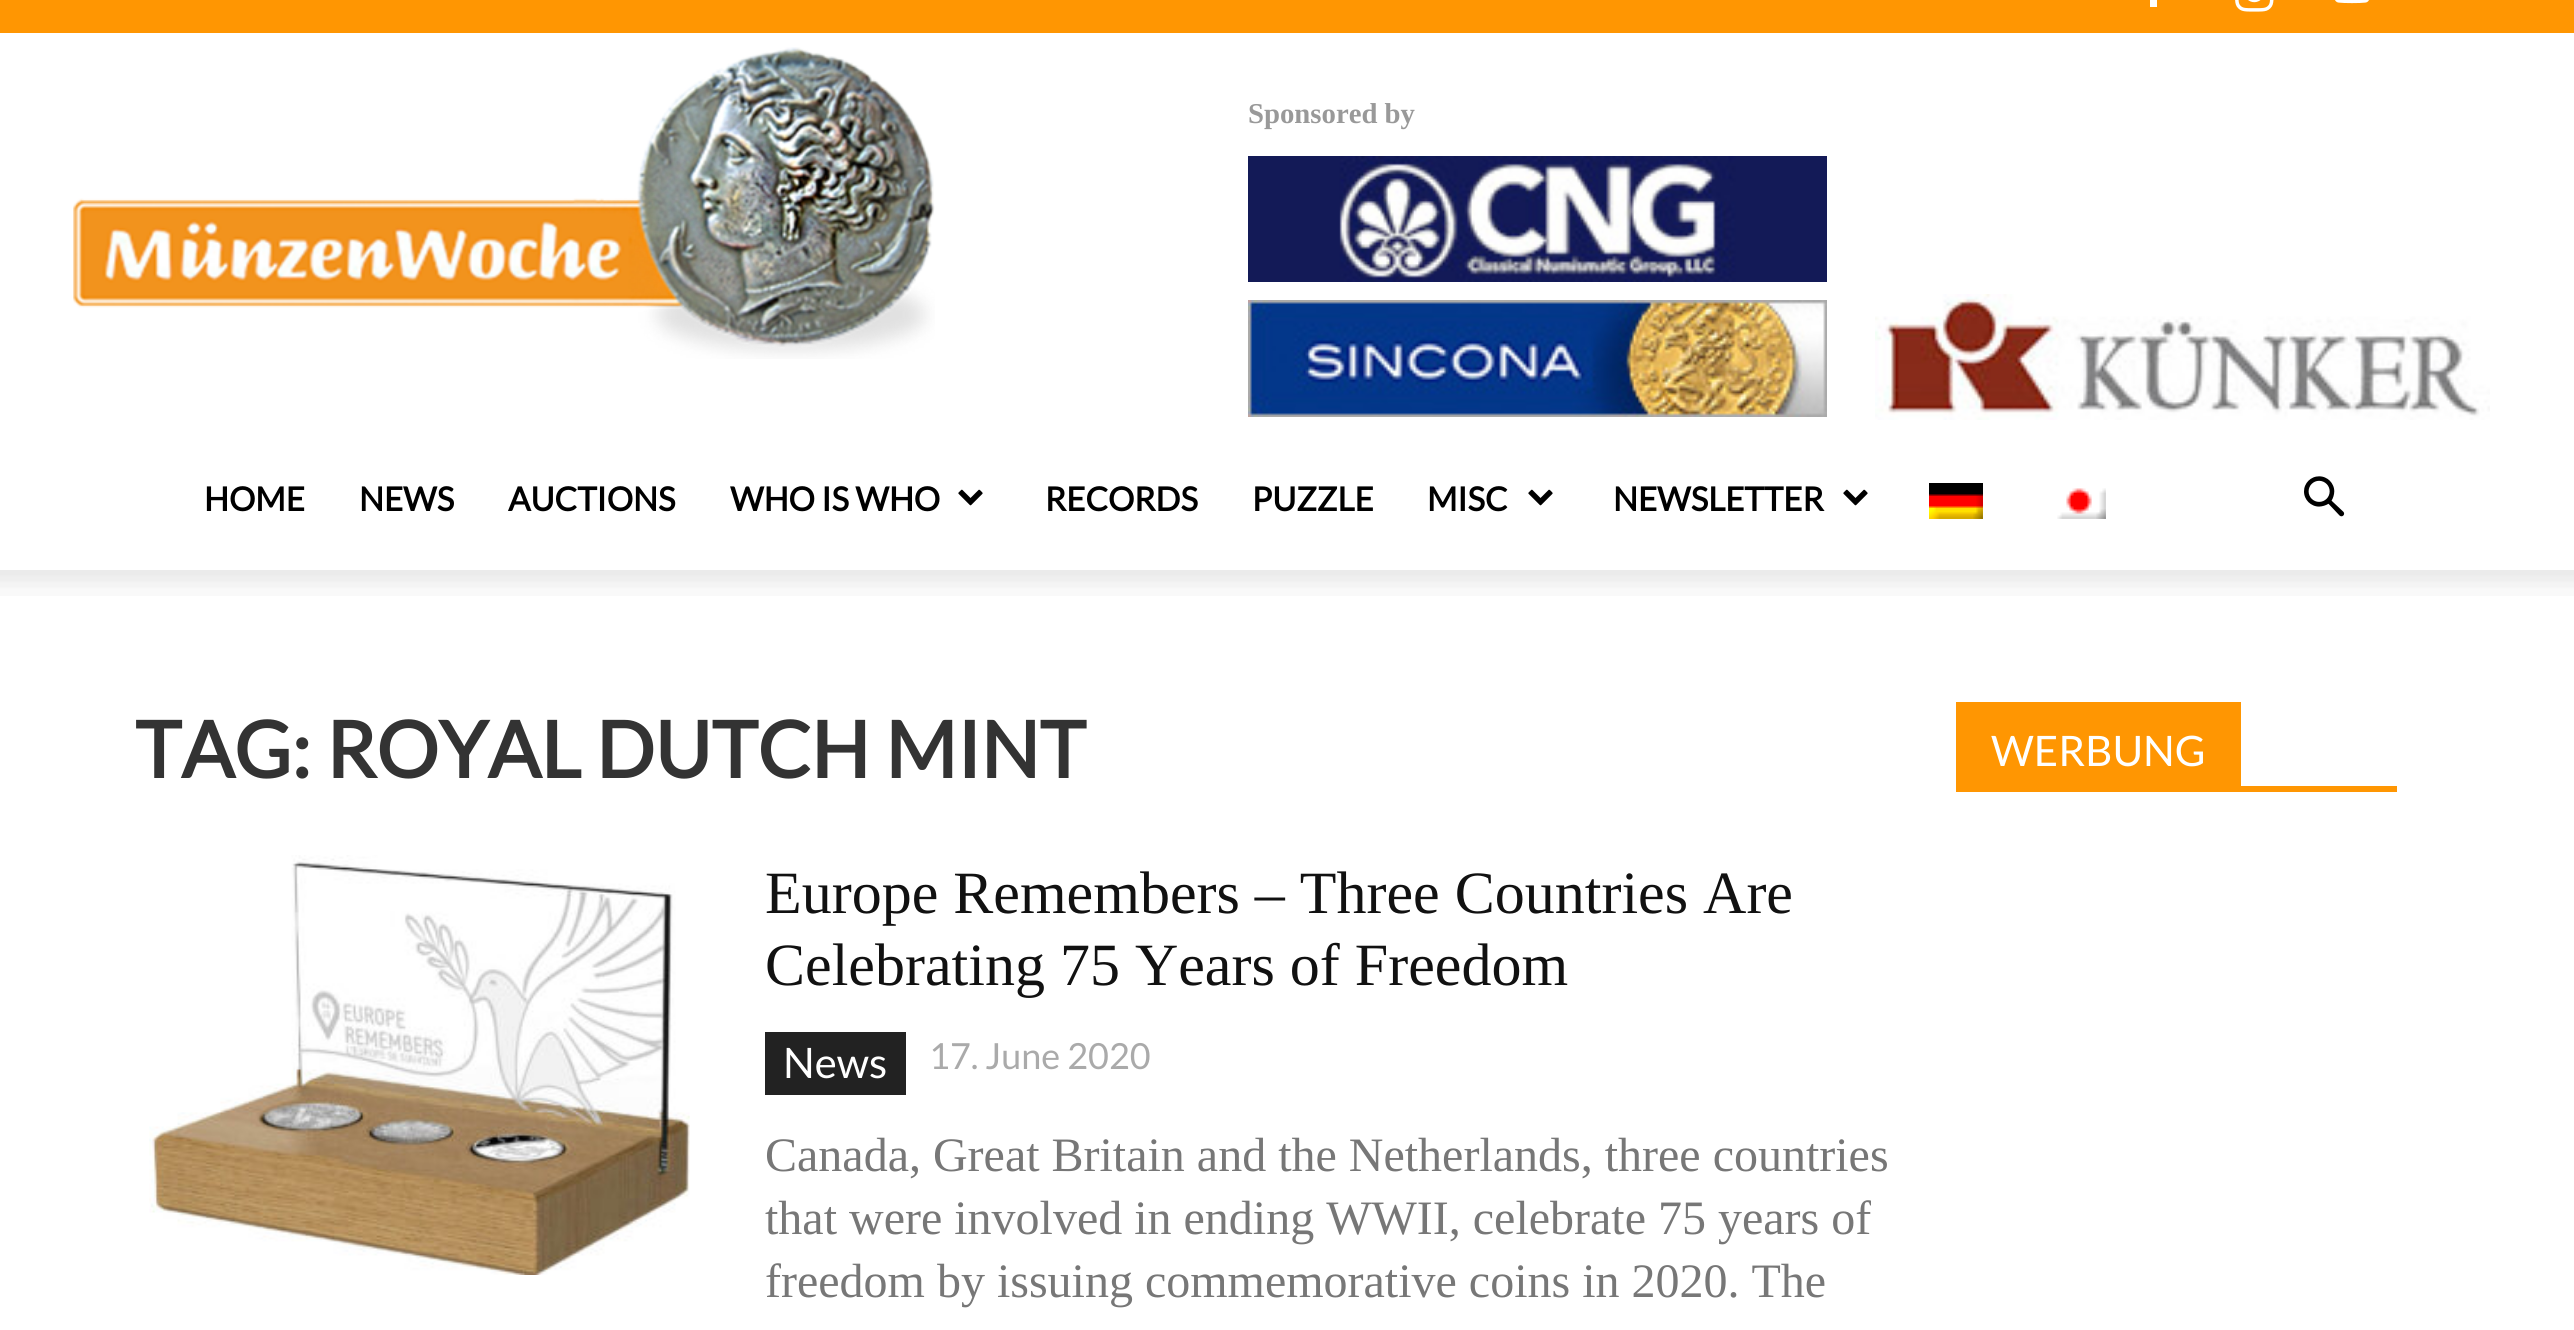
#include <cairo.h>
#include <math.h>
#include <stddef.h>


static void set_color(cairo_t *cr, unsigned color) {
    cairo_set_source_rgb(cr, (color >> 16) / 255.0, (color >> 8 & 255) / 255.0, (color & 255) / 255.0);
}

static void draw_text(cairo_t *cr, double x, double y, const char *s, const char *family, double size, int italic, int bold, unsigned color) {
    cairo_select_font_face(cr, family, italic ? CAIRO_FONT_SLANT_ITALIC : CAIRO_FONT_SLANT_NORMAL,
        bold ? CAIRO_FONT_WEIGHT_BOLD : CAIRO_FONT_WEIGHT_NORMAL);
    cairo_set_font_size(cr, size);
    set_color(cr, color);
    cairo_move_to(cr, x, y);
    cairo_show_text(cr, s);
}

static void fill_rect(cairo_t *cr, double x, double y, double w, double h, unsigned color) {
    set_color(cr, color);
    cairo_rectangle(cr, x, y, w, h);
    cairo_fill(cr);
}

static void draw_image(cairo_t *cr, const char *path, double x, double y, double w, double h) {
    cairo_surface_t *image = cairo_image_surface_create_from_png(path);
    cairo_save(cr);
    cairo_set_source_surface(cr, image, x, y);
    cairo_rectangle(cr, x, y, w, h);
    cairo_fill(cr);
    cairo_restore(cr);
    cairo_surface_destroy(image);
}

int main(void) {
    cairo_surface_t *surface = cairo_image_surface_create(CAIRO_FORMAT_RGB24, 2574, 1330);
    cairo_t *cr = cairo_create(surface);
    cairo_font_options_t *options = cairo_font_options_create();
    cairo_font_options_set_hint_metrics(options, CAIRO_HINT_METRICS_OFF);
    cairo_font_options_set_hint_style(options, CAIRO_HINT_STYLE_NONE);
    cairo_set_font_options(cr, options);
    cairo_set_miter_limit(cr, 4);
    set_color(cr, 0xFFFFFF);
    cairo_paint(cr);
    fill_rect(cr, 0, 0, 2574, 33, 0xFF9602);
    fill_rect(cr, 2150, 0, 7, 7, 0xFFFFFF);
    draw_image(cr, "assets/img1.png", 2235, 0, 39, 12);
    draw_image(cr, "assets/img2.png", 2335, 0, 34, 4);
    draw_image(cr, "assets/img3.png", 73, 47, 862, 312);
    draw_text(cr, 1248, 123, "Sponsored by", "Liberation Serif", 28.75, 0, 1, 0x999999);
    draw_image(cr, "assets/img4.png", 1248, 156, 579, 126);
    draw_image(cr, "assets/img5.png", 1248, 300, 579, 117);
    draw_image(cr, "assets/img6.png", 1875, 294, 615, 126);
    draw_text(cr, 204, 511, "HOME", "Lato", 33, 0, 1, 0x000000);
    draw_text(cr, 359, 511, "NEWS", "Lato", 33, 0, 1, 0x000000);
    draw_text(cr, 508, 511, "AUCTIONS", "Lato", 33, 0, 1, 0x000000);
    draw_text(cr, 730, 511, "WHO IS WHO", "Lato", 33, 0, 1, 0x000000);
    draw_image(cr, "assets/img7.png", 958, 489, 25, 17);
    draw_text(cr, 1045, 511, "RECORDS", "Lato", 33, 0, 1, 0x000000);
    draw_text(cr, 1252, 511, "PUZZLE", "Lato", 33, 0, 1, 0x000000);
    draw_text(cr, 1427, 511, "MISC", "Lato", 33, 0, 1, 0x000000);
    draw_image(cr, "assets/img7.png", 1528, 489, 25, 17);
    draw_text(cr, 1613, 511, "NEWSLETTER", "Lato", 33, 0, 1, 0x000000);
    draw_image(cr, "assets/img7.png", 1843, 489, 25, 17);
    draw_image(cr, "assets/img8.png", 1929, 483, 54, 36);
    draw_image(cr, "assets/img9.png", 2057, 488, 49, 31);
    draw_image(cr, "assets/img10.png", 2304, 476, 41, 41);
    draw_image(cr, "assets/img11.png", 0, 570, 2574, 26);
    draw_text(cr, 135, 778, "TAG: ROYAL DUTCH MINT", "Lato", 78, 0, 1, 0x333333);
    draw_image(cr, "assets/img12.png", 149, 855, 541, 420);
    draw_text(cr, 765, 913, "Europe Remembers – Three Countries Are", "Liberation Serif", 60, 0, 0, 0x111111);
    draw_text(cr, 765, 985, "Celebrating 75 Years of Freedom", "Liberation Serif", 60, 0, 0, 0x111111);
    fill_rect(cr, 765, 1032, 141, 63, 0x222222);
    draw_text(cr, 783, 1078, "News", "Lato", 42, 0, 0, 0xFFFFFF);
    draw_text(cr, 929, 1069, "17. June 2020", "Lato", 36, 0, 0, 0xAAAAAA);
    draw_text(cr, 765, 1171, "Canada, Great Britain and the Netherlands, three countries", "Liberation Serif", 48, 0, 0, 0x777777);
    draw_text(cr, 765, 1234, "that were involved in ending WWII, celebrate 75 years of", "Liberation Serif", 48, 0, 0, 0x777777);
    draw_text(cr, 765, 1297, "freedom by issuing commemorative coins in 2020. The", "Liberation Serif", 48, 0, 0, 0x777777);
    fill_rect(cr, 1956, 786, 441, 6, 0xFF9602);
    fill_rect(cr, 1956, 702, 285, 84, 0xFF9602);
    draw_text(cr, 1991, 766, "WERBUNG", "Lato", 42, 0, 0, 0xFFFFFF);
    cairo_surface_write_to_png(surface, "output.png");
    cairo_font_options_destroy(options);
    cairo_destroy(cr);
    cairo_surface_destroy(surface);
    return 0;
}
